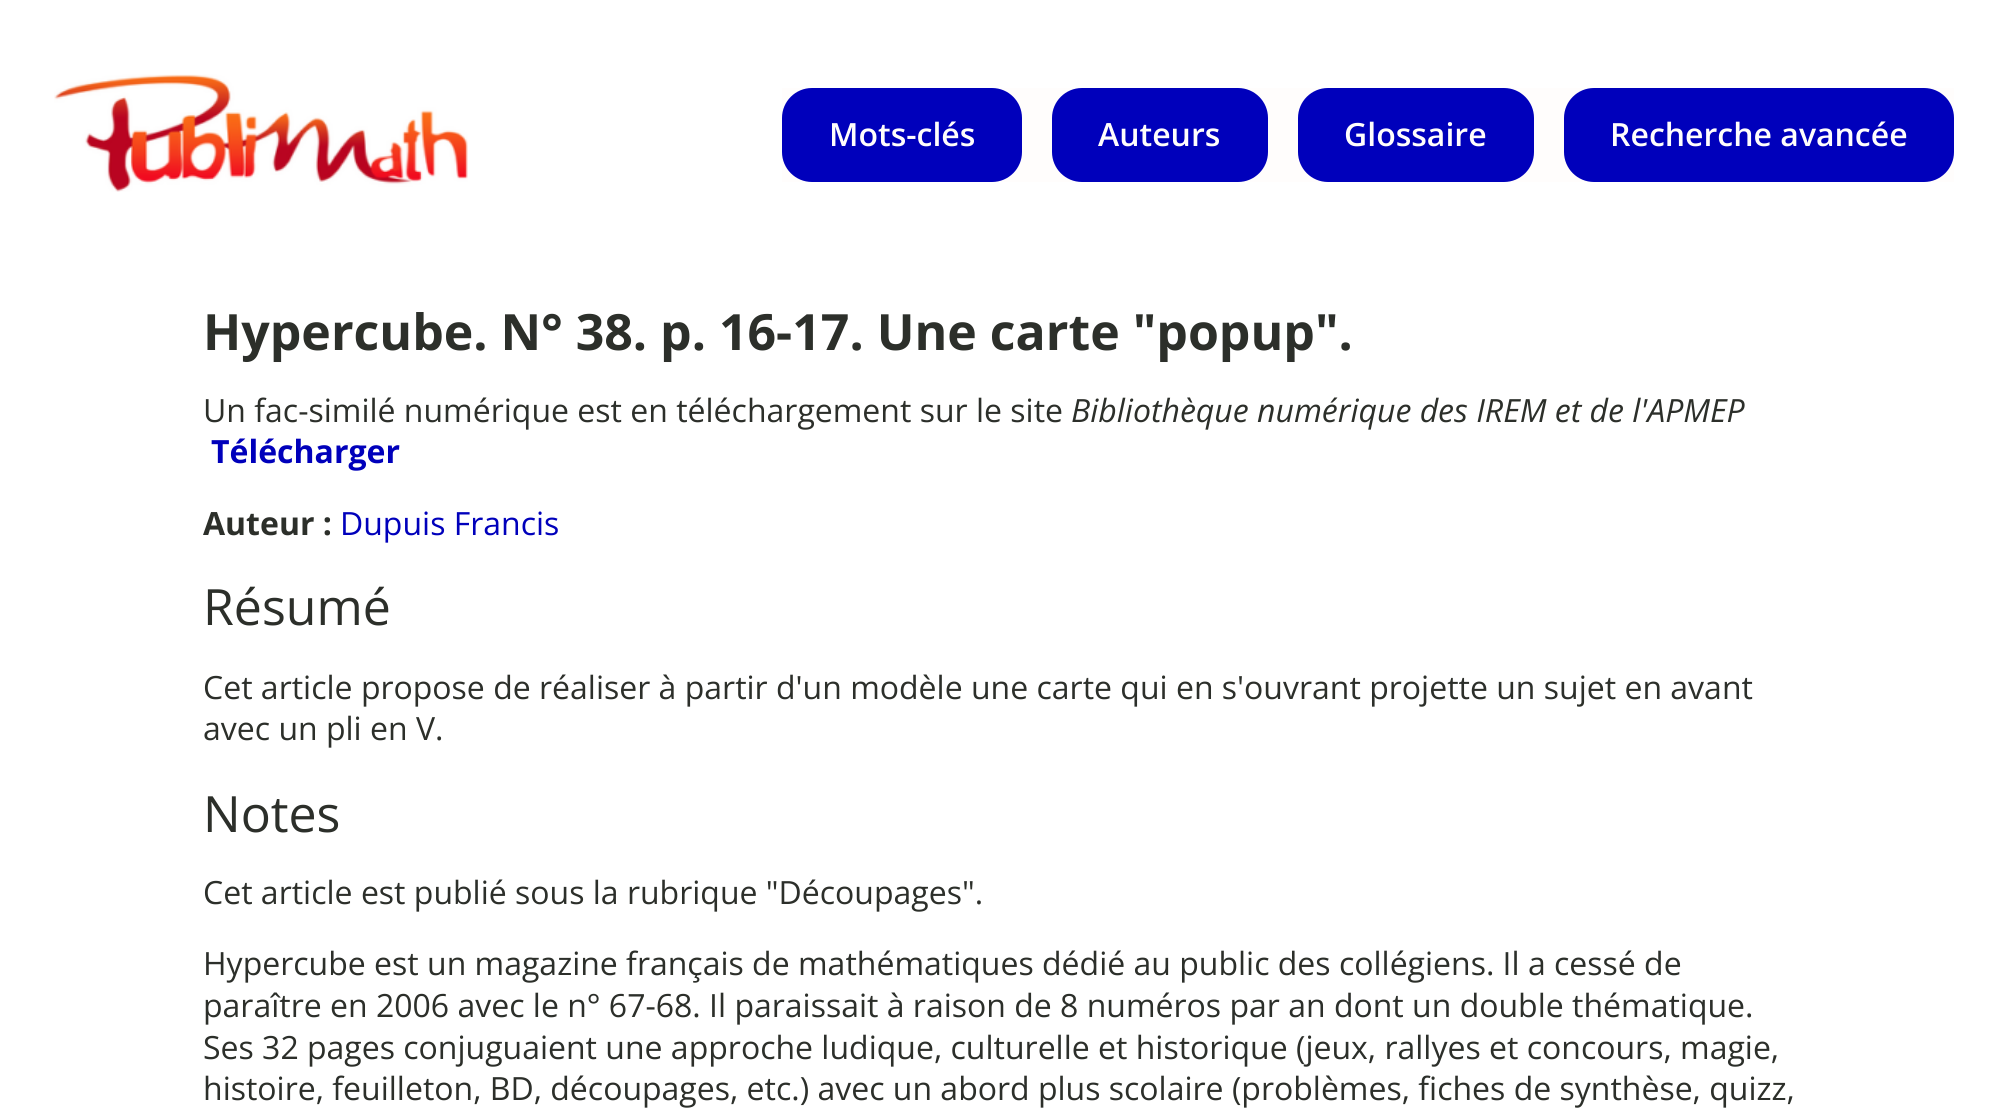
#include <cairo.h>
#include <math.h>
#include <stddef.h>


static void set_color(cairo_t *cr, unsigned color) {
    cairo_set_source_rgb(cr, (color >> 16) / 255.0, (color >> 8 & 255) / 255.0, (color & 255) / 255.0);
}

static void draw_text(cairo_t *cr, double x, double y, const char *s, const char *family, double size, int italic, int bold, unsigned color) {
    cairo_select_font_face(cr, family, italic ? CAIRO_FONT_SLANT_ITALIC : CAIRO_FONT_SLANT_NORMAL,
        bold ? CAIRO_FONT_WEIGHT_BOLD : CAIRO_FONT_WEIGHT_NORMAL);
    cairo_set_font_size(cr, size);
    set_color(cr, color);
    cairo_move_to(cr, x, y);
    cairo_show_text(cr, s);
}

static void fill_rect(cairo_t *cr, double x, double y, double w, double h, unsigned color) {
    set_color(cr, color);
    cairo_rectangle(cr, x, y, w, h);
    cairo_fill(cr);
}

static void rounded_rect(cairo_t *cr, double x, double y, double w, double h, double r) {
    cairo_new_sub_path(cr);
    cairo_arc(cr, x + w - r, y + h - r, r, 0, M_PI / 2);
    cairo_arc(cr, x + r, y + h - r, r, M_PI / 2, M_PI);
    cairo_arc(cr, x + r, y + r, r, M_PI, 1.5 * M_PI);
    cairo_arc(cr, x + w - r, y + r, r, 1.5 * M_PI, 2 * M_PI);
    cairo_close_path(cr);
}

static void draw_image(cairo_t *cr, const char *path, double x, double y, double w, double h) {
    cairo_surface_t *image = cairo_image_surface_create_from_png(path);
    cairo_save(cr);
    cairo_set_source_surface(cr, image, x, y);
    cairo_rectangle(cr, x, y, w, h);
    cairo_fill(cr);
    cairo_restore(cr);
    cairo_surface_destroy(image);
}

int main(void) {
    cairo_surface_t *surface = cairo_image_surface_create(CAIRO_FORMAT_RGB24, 2006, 1113);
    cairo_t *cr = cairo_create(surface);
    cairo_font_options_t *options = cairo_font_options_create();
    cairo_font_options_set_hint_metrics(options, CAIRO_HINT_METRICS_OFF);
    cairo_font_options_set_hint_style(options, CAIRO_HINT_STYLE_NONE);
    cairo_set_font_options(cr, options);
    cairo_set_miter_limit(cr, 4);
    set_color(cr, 0xFFFFFF);
    cairo_paint(cr);
    draw_image(cr, "assets/img1.png", 54, 74, 414, 118);
    fill_rect(cr, 782, 88, 1172, 94, 0xFFFDFC);
    set_color(cr, 0x0000BB);
    rounded_rect(cr, 782, 88, 240, 94, 30);
    cairo_fill(cr);
    draw_text(cr, 829, 146, "Mots-clés", "Open Sans SemiBold", 32, 0, 0, 0xFFFDFC);
    set_color(cr, 0x0000BB);
    rounded_rect(cr, 1052, 88, 216, 94, 30);
    cairo_fill(cr);
    draw_text(cr, 1098, 146, "Auteurs", "Open Sans SemiBold", 32, 0, 0, 0xFFFDFC);
    set_color(cr, 0x0000BB);
    rounded_rect(cr, 1298, 88, 236, 94, 30);
    cairo_fill(cr);
    draw_text(cr, 1344, 146, "Glossaire", "Open Sans SemiBold", 32, 0, 0, 0xFFFDFC);
    set_color(cr, 0x0000BB);
    rounded_rect(cr, 1564, 88, 390, 94, 30);
    cairo_fill(cr);
    draw_text(cr, 1610, 146, "Recherche avancée", "Open Sans SemiBold", 32, 0, 0, 0xFFFDFC);
    draw_text(cr, 203, 350, "Hypercube. N° 38. p. 16-17. Une carte \"popup\".", "Open Sans", 50, 0, 1, 0x2C2F2A);
    draw_text(cr, 203, 422, "Un fac-similé numérique est en téléchargement sur le site", "Open Sans", 32, 0, 0, 0x2C2F2A);
    draw_text(cr, 1071, 422, "Bibliothèque numérique des IREM et de l'APMEP", "Open Sans", 32, 1, 0, 0x2C2F2A);
    draw_text(cr, 211, 463, "Télécharger", "Open Sans", 32, 0, 1, 0x0000BB);
    draw_text(cr, 203, 535, "Auteur :", "Open Sans", 32, 0, 1, 0x2C2F2A);
    draw_text(cr, 340, 535, "Dupuis Francis", "Open Sans", 32, 0, 0, 0x0000BB);
    draw_text(cr, 203, 625, "Résumé", "Open Sans", 50, 0, 0, 0x2C2F2A);
    draw_text(cr, 203, 699, "Cet article propose de réaliser à partir d'un modèle une carte qui en s'ouvrant projette un sujet en avant", "Open Sans", 32, 0, 0, 0x2C2F2A);
    draw_text(cr, 203, 740, "avec un pli en V.", "Open Sans", 32, 0, 0, 0x2C2F2A);
    draw_text(cr, 203, 832, "Notes", "Open Sans", 50, 0, 0, 0x2C2F2A);
    draw_text(cr, 203, 904, "Cet article est publié sous la rubrique \"Découpages\".", "Open Sans", 32, 0, 0, 0x2C2F2A);
    draw_text(cr, 203, 975, "Hypercube est un magazine français de mathématiques dédié au public des collégiens. Il a cessé de", "Open Sans", 32, 0, 0, 0x2C2F2A);
    draw_text(cr, 203, 1017, "paraître en 2006 avec le n° 67-68. Il paraissait à raison de 8 numéros par an dont un double thématique.", "Open Sans", 32, 0, 0, 0x2C2F2A);
    draw_text(cr, 203, 1059, "Ses 32 pages conjuguaient une approche ludique, culturelle et historique (jeux, rallyes et concours, magie,", "Open Sans", 32, 0, 0, 0x2C2F2A);
    draw_text(cr, 203, 1100, "histoire, feuilleton, BD, découpages, etc.) avec un abord plus scolaire (problèmes, fiches de synthèse, quizz,", "Open Sans", 32, 0, 0, 0x2C2F2A);
    cairo_surface_write_to_png(surface, "output.png");
    cairo_font_options_destroy(options);
    cairo_destroy(cr);
    cairo_surface_destroy(surface);
    return 0;
}
